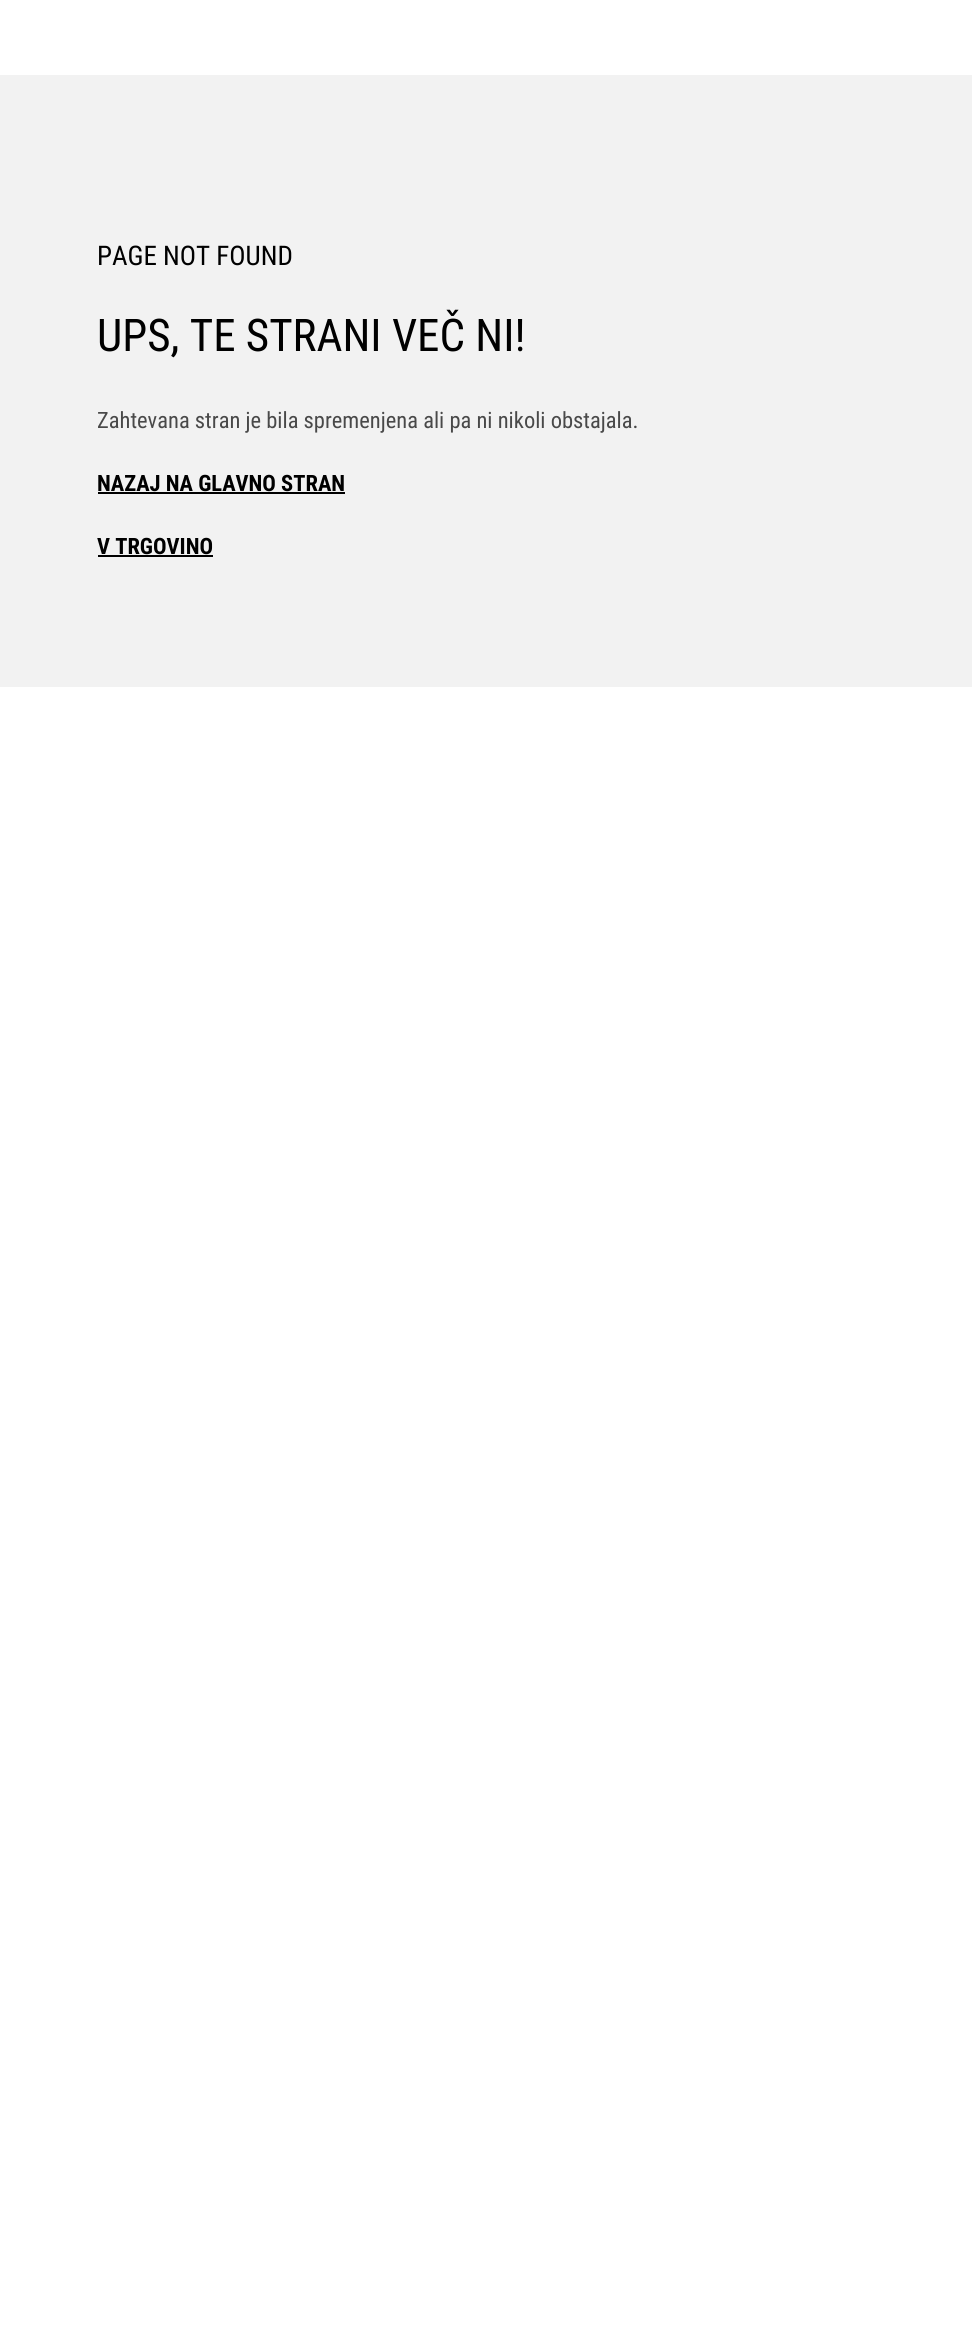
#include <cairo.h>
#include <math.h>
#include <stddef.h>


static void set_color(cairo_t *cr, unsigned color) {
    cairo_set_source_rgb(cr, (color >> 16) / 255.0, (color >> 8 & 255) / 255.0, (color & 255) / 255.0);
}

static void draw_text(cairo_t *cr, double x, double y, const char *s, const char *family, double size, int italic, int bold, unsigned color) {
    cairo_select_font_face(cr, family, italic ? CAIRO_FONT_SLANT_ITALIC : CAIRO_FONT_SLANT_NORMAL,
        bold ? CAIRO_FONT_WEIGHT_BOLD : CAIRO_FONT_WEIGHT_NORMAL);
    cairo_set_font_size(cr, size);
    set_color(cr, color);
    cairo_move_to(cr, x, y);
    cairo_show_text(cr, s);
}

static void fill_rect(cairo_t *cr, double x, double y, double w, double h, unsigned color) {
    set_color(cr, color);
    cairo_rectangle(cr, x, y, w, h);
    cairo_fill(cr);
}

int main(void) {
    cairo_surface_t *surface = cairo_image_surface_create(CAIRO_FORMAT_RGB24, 972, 2337);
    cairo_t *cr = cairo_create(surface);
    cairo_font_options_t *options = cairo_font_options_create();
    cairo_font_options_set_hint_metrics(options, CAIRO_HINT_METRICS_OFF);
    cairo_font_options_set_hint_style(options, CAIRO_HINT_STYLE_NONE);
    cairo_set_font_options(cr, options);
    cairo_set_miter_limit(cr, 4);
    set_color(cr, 0xFFFFFF);
    cairo_paint(cr);
    fill_rect(cr, 0, 75, 972, 612, 0xF2F2F2);
    draw_text(cr, 97, 265, "PAGE NOT FOUND", "Roboto Condensed", 27, 0, 0, 0x000000);
    draw_text(cr, 97, 351, "UPS, TE STRANI VEČ NI!", "Roboto Condensed", 45, 0, 0, 0x000000);
    draw_text(cr, 97, 428, "Zahtevana stran je bila spremenjena ali pa ni nikoli obstajala.", "Roboto Condensed", 22.5, 0, 0, 0x494949);
    draw_text(cr, 97, 491, "NAZAJ NA GLAVNO STRAN", "Roboto Condensed", 22.5, 0, 1, 0x000000);
    fill_rect(cr, 98, 492, 247, 2, 0x000000);
    draw_text(cr, 97, 554, "V TRGOVINO", "Roboto Condensed", 22.5, 0, 1, 0x000000);
    fill_rect(cr, 98, 555, 115, 2, 0x000000);
    cairo_surface_write_to_png(surface, "output.png");
    cairo_font_options_destroy(options);
    cairo_destroy(cr);
    cairo_surface_destroy(surface);
    return 0;
}
